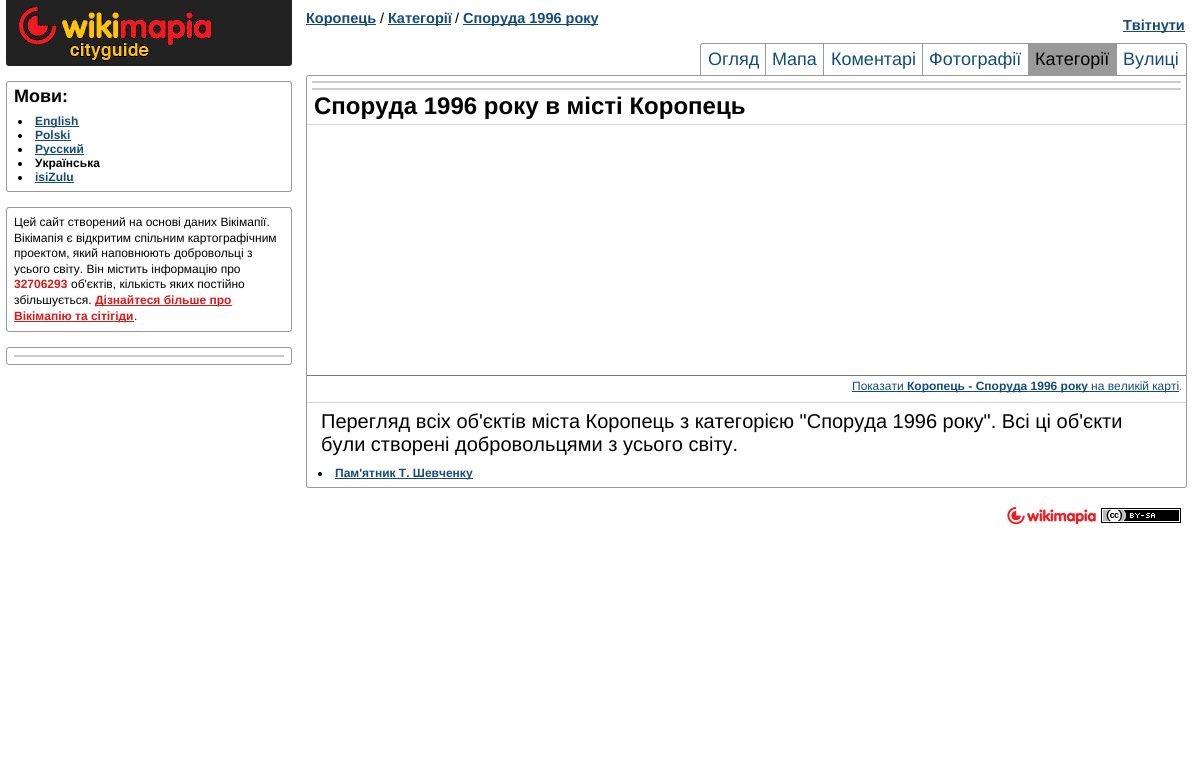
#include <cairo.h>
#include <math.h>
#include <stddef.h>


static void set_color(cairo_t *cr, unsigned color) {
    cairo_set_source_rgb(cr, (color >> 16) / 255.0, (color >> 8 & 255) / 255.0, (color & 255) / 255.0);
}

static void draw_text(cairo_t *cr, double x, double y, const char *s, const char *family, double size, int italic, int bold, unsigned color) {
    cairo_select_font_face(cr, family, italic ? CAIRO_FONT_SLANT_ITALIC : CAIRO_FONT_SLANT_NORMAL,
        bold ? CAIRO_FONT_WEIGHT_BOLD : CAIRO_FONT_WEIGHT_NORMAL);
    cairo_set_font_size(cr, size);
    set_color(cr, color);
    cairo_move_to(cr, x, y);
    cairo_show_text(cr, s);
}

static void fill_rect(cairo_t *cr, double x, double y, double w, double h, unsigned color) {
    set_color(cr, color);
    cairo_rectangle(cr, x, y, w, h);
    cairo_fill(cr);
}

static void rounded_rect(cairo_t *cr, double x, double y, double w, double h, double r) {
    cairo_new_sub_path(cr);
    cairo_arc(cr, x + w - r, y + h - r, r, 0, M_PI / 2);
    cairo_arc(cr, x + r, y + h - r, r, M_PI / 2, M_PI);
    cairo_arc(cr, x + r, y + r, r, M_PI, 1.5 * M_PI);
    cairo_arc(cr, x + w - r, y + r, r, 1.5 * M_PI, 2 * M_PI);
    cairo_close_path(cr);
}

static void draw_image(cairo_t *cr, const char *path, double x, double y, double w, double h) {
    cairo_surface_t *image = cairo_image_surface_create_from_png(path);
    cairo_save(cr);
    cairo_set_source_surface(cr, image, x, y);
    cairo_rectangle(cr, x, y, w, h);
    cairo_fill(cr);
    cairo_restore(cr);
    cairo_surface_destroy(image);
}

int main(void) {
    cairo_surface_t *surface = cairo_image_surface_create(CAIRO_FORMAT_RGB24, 1195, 762);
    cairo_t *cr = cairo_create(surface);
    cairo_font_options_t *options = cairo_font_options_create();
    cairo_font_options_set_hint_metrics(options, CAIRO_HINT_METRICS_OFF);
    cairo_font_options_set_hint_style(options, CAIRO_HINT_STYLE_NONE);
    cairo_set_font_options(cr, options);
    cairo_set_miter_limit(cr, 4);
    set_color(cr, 0xFFFFFF);
    cairo_paint(cr);
    fill_rect(cr, 306, 24, 70, 1, 0x144B78);
    draw_text(cr, 306, 23, "Коропець", "Liberation Sans", 14.5, 0, 1, 0x144B78);
    draw_text(cr, 380, 23, "/", "Liberation Sans", 14.5, 0, 0, 0x000000);
    fill_rect(cr, 388, 24, 63, 1, 0x144B78);
    draw_text(cr, 388, 23, "Категорії", "Liberation Sans", 14.5, 0, 1, 0x144B78);
    draw_text(cr, 455, 23, "/", "Liberation Sans", 14.5, 0, 0, 0x000000);
    fill_rect(cr, 463, 24, 135, 1, 0x144B78);
    draw_text(cr, 463, 23, "Споруда 1996 року", "Liberation Sans", 14.5, 0, 1, 0x144B78);
    fill_rect(cr, 1123, 31, 62, 1, 0x144B78);
    draw_text(cr, 1123, 30, "Твітнути", "Liberation Sans", 14.5, 0, 1, 0x144B78);
    cairo_new_path(cr);
    cairo_move_to(cr, 703, 43.5);
    cairo_line_to(cr, 1184, 43.5);
    cairo_curve_to(cr, 1185.5, 43.5, 1186.5, 44.5, 1186.5, 46);
    cairo_line_to(cr, 1186.5, 75.5);
    cairo_line_to(cr, 700.5, 75.5);
    cairo_line_to(cr, 700.5, 46);
    cairo_curve_to(cr, 700.5, 44.5, 701.5, 43.5, 703, 43.5);
    cairo_close_path(cr);
    set_color(cr, 0x999999);
    cairo_set_line_width(cr, 1);
    cairo_stroke(cr);
    fill_rect(cr, 765, 44, 1, 31, 0x999999);
    draw_text(cr, 708, 65, "Огляд", "Liberation Sans", 18, 0, 0, 0x144B78);
    fill_rect(cr, 823, 44, 1, 31, 0x999999);
    draw_text(cr, 772, 65, "Мапа", "Liberation Sans", 18, 0, 0, 0x144B78);
    fill_rect(cr, 922, 44, 1, 31, 0x999999);
    draw_text(cr, 831, 65, "Коментарі", "Liberation Sans", 18, 0, 0, 0x144B78);
    fill_rect(cr, 1028, 44, 89, 31, 0x999999);
    draw_text(cr, 929, 65, "Фотографії", "Liberation Sans", 18, 0, 0, 0x144B78);
    draw_text(cr, 1035, 65, "Категорії", "Liberation Sans", 18, 0, 0, 0x000000);
    draw_text(cr, 1123, 65, "Вулиці", "Liberation Sans", 18, 0, 0, 0x144B78);
    set_color(cr, 0x222222);
    cairo_new_path(cr);
    cairo_move_to(cr, 6.5, 0.5);
    cairo_line_to(cr, 291.5, 0.5);
    cairo_line_to(cr, 291.5, 63);
    cairo_curve_to(cr, 291.5, 64.5, 290.5, 65.5, 289, 65.5);
    cairo_line_to(cr, 9, 65.5);
    cairo_curve_to(cr, 7.5, 65.5, 6.5, 64.5, 6.5, 63);
    cairo_close_path(cr);
    cairo_fill_preserve(cr);
    cairo_stroke(cr);
    draw_image(cr, "assets/img1.png", 19, 7, 192, 54);
    rounded_rect(cr, 6.5, 81.5, 285, 110, 2.5);
    set_color(cr, 0x999999);
    cairo_stroke(cr);
    draw_text(cr, 14, 102, "Мови:", "Liberation Sans", 18, 0, 1, 0x000000);
    cairo_new_path(cr);
    cairo_arc(cr, 20, 122, 2, 0, 2 * M_PI);
    cairo_fill(cr);
    fill_rect(cr, 35, 126, 44, 1, 0x144B78);
    draw_text(cr, 35, 125, "English", "Liberation Sans", 12, 0, 1, 0x144B78);
    set_color(cr, 0x000000);
    cairo_new_path(cr);
    cairo_arc(cr, 20, 136, 2, 0, 2 * M_PI);
    cairo_fill(cr);
    draw_text(cr, 35, 139, "Polski", "Liberation Sans", 12, 0, 1, 0x144B78);
    fill_rect(cr, 35, 140, 36, 1, 0x144B78);
    set_color(cr, 0x000000);
    cairo_new_path(cr);
    cairo_arc(cr, 20, 150, 2, 0, 2 * M_PI);
    cairo_fill(cr);
    fill_rect(cr, 35, 154, 49, 1, 0x144B78);
    draw_text(cr, 35, 153, "Русский", "Liberation Sans", 12, 0, 1, 0x144B78);
    set_color(cr, 0x000000);
    cairo_new_path(cr);
    cairo_arc(cr, 20, 164, 2, 0, 2 * M_PI);
    cairo_fill(cr);
    draw_text(cr, 35, 167, "Українська", "Liberation Sans", 12, 0, 1, 0x000000);
    cairo_new_path(cr);
    cairo_arc(cr, 20, 178, 2, 0, 2 * M_PI);
    cairo_fill(cr);
    draw_text(cr, 35, 181, "isiZulu", "Liberation Sans", 12, 0, 1, 0x144B78);
    fill_rect(cr, 35, 182, 39, 1, 0x144B78);
    rounded_rect(cr, 6.5, 207.5, 285, 124, 2.5);
    set_color(cr, 0x999999);
    cairo_stroke(cr);
    draw_text(cr, 14, 226, "Цей сайт створений на основі даних Вікімапії.", "Liberation Sans", 12, 0, 0, 0x000000);
    draw_text(cr, 14, 242, "Вікімапія є відкритим спільним картографічним", "Liberation Sans", 12, 0, 0, 0x000000);
    draw_text(cr, 14, 257, "проектом, який наповнюють добровольці з", "Liberation Sans", 12, 0, 0, 0x000000);
    draw_text(cr, 14, 273, "усього світу. Він містить інформацію про", "Liberation Sans", 12, 0, 0, 0x000000);
    draw_text(cr, 14, 288, "32706293", "Liberation Sans", 12, 0, 1, 0xD71A1A);
    draw_text(cr, 71, 288, "об'єктів, кількість яких постійно", "Liberation Sans", 12, 0, 0, 0x000000);
    draw_text(cr, 14, 304, "збільшується.", "Liberation Sans", 12, 0, 0, 0x000000);
    fill_rect(cr, 95, 305, 137, 1, 0xD71A1A);
    draw_text(cr, 95, 304, "Дізнайтеся більше про", "Liberation Sans", 12, 0, 1, 0xD71A1A);
    fill_rect(cr, 14, 321, 120, 1, 0xD71A1A);
    draw_text(cr, 14, 320, "Вікімапію та сітігіди", "Liberation Sans", 12, 0, 1, 0xD71A1A);
    draw_text(cr, 134, 320, ".", "Liberation Sans", 12, 0, 0, 0x000000);
    rounded_rect(cr, 6.5, 347.5, 285, 17, 2.5);
    set_color(cr, 0x999999);
    cairo_stroke(cr);
    fill_rect(cr, 14, 355, 270, 2, 0xCCCCCC);
    cairo_new_path(cr);
    cairo_move_to(cr, 309, 75.5);
    cairo_line_to(cr, 1186.5, 75.5);
    cairo_line_to(cr, 1186.5, 485);
    cairo_curve_to(cr, 1186.5, 486.5, 1185.5, 487.5, 1184, 487.5);
    cairo_line_to(cr, 309, 487.5);
    cairo_curve_to(cr, 307.5, 487.5, 306.5, 486.5, 306.5, 485);
    cairo_line_to(cr, 306.5, 78);
    cairo_curve_to(cr, 306.5, 76.5, 307.5, 75.5, 309, 75.5);
    cairo_close_path(cr);
    set_color(cr, 0x999999);
    cairo_stroke(cr);
    fill_rect(cr, 312, 81, 869, 2, 0xCCCCCC);
    fill_rect(cr, 312, 88, 869, 2, 0xCCCCCC);
    draw_text(cr, 314, 114, "Споруда 1996 року в місті Коропець", "Liberation Sans", 24, 0, 1, 0x000000);
    fill_rect(cr, 307, 124, 879, 1, 0xD5D5D5);
    fill_rect(cr, 307, 375, 879, 1, 0x777777);
    draw_text(cr, 852, 390, "Показати", "Liberation Sans", 12, 0, 0, 0x144B78);
    fill_rect(cr, 852, 391, 327, 1, 0x144B78);
    draw_text(cr, 907, 390, "Коропець - Споруда 1996 року", "Liberation Sans", 12, 0, 1, 0x144B78);
    draw_text(cr, 1091, 390, "на великій карті", "Liberation Sans", 12, 0, 0, 0x144B78);
    draw_text(cr, 1179, 390, ".", "Liberation Sans", 12, 0, 0, 0x777777);
    fill_rect(cr, 307, 402, 879, 1, 0xD5D5D5);
    draw_text(cr, 321, 428, "Перегляд всіх об'єктів міста Коропець з категорією \"Споруда 1996 року\". Всі ці об'єкти", "Liberation Sans", 20, 0, 0, 0x000000);
    draw_text(cr, 321, 451, "були створені добровольцями з усього світу.", "Liberation Sans", 20, 0, 0, 0x000000);
    cairo_new_path(cr);
    cairo_arc(cr, 320, 474, 2, 0, 2 * M_PI);
    cairo_fill(cr);
    fill_rect(cr, 335, 478, 138, 1, 0x144B78);
    draw_text(cr, 335, 477, "Пам'ятник Т. Шевченку", "Liberation Sans", 12, 0, 1, 0x144B78);
    draw_image(cr, "assets/img2.png", 1007, 507, 89, 17);
    draw_image(cr, "assets/img3.png", 1101, 508, 80, 15);
    cairo_surface_write_to_png(surface, "output.png");
    cairo_font_options_destroy(options);
    cairo_destroy(cr);
    cairo_surface_destroy(surface);
    return 0;
}
